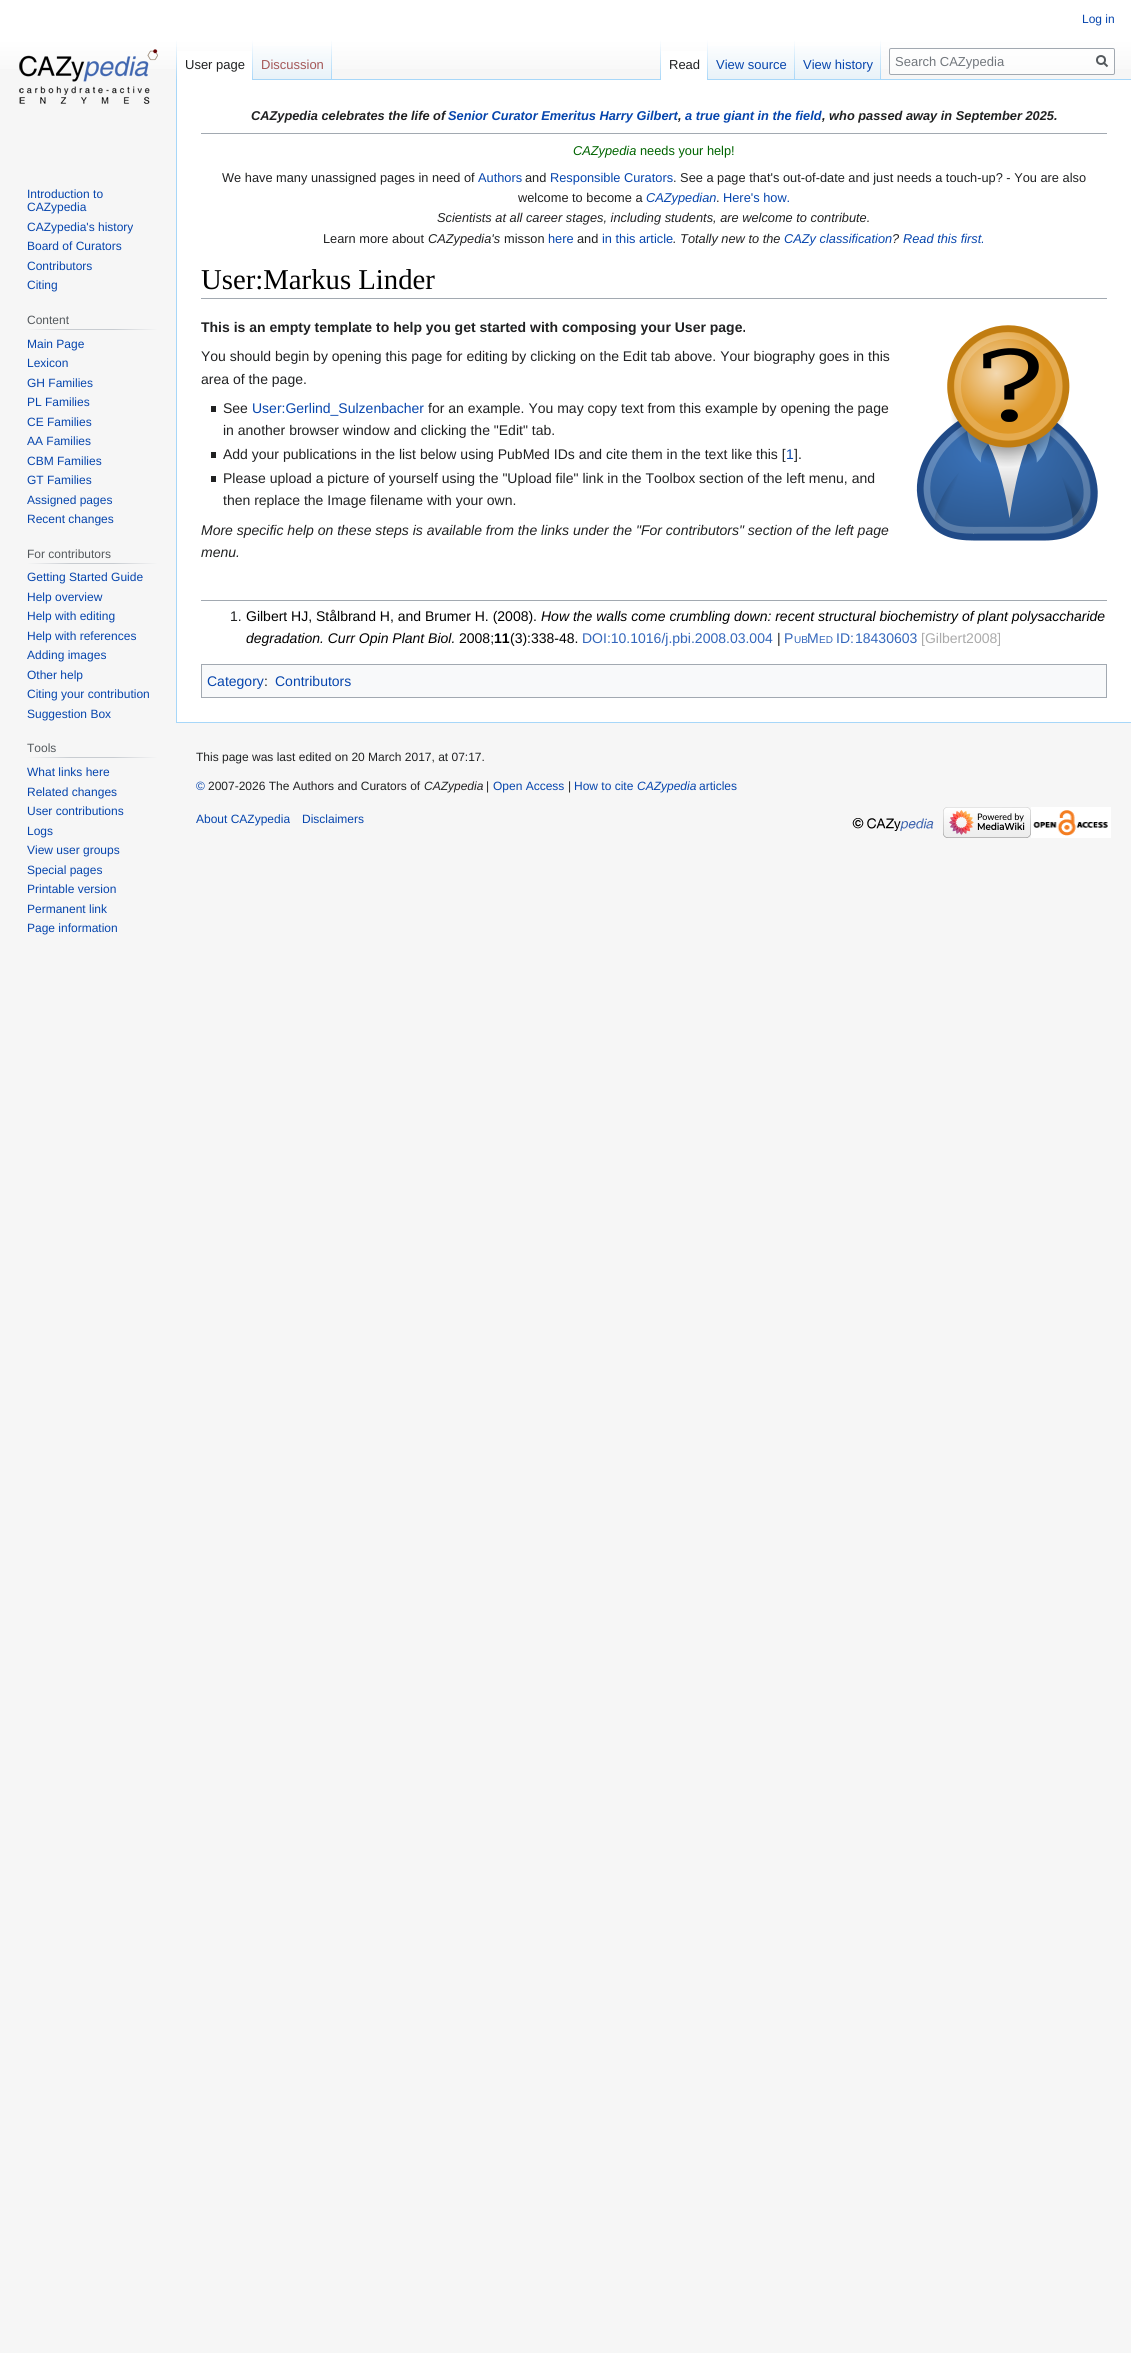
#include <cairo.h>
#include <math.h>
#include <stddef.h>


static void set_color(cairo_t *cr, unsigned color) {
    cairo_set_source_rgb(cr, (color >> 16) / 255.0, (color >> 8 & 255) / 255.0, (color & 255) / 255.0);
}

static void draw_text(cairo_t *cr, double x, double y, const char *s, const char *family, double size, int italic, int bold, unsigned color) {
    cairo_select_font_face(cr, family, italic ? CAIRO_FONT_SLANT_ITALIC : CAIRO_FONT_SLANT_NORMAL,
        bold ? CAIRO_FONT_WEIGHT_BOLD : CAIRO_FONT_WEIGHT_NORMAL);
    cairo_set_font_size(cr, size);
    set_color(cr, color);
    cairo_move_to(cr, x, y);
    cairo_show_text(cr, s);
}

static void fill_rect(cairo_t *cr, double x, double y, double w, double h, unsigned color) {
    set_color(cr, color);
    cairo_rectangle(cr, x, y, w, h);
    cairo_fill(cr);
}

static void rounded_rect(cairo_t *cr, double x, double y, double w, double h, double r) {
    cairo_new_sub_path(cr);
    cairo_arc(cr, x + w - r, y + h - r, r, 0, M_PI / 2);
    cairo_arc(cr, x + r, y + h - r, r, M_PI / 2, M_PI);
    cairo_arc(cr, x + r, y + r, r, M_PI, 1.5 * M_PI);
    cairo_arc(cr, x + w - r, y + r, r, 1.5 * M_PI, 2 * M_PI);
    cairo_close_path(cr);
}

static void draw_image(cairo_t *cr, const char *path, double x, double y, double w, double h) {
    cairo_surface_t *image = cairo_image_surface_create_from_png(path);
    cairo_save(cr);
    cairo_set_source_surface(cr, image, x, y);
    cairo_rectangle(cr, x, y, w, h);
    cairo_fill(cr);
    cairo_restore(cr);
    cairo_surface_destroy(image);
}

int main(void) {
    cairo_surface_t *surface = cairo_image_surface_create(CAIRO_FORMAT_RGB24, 1131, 2353);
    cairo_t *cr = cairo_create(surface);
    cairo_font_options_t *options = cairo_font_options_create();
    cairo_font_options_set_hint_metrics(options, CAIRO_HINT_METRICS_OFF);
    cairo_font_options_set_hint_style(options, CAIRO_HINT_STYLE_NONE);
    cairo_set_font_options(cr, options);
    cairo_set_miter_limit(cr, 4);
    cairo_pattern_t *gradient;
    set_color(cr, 0xF6F6F6);
    cairo_paint(cr);
    gradient = cairo_pattern_create_linear(566, 0, 566, 80);
    cairo_pattern_add_color_stop_rgba(gradient, 0.5, 1, 1, 1, 1);
    cairo_pattern_add_color_stop_rgba(gradient, 1, 0.965, 0.965, 0.965, 1);
    cairo_set_source(cr, gradient);
    cairo_pattern_destroy(gradient);
    cairo_rectangle(cr, 0, 0, 1131, 69);
    cairo_fill(cr);
    draw_text(cr, 1082, 23, "Log in", "Liberation Sans", 12, 0, 0, 0x0645AD);
    fill_rect(cr, 176, 722, 955, 1, 0xA7D7F9);
    fill_rect(cr, 176, 79, 1, 644, 0xA7D7F9);
    gradient = cairo_pattern_create_linear(177, 40, 177, 80);
    cairo_pattern_add_color_stop_rgba(gradient, 0, 0.655, 0.843, 0.976, 0);
    cairo_pattern_add_color_stop_rgba(gradient, 1, 0.655, 0.843, 0.976, 1);
    cairo_set_source(cr, gradient);
    cairo_pattern_destroy(gradient);
    cairo_rectangle(cr, 176, 40, 1, 40);
    cairo_fill(cr);
    fill_rect(cr, 177, 51, 75, 29, 0xFFFFFF);
    gradient = cairo_pattern_create_linear(253, 40, 253, 80);
    cairo_pattern_add_color_stop_rgba(gradient, 0, 1, 1, 1, 1);
    cairo_pattern_add_color_stop_rgba(gradient, 1, 0.655, 0.843, 0.976, 1);
    cairo_set_source(cr, gradient);
    cairo_pattern_destroy(gradient);
    cairo_rectangle(cr, 252, 40, 1, 40);
    cairo_fill(cr);
    draw_text(cr, 185, 69, "User page", "Liberation Sans", 13, 0, 0, 0x202122);
    gradient = cairo_pattern_create_linear(293, 80, 293, 40);
    cairo_pattern_add_color_stop_rgba(gradient, 0, 0.467, 0.757, 0.965, 1);
    cairo_pattern_add_color_stop_rgba(gradient, 0.03, 0.91, 0.949, 0.973, 1);
    cairo_pattern_add_color_stop_rgba(gradient, 1, 1, 1, 1, 1);
    cairo_set_source(cr, gradient);
    cairo_pattern_destroy(gradient);
    cairo_rectangle(cr, 253, 46, 79, 34);
    cairo_fill(cr);
    gradient = cairo_pattern_create_linear(332, 40, 332, 80);
    cairo_pattern_add_color_stop_rgba(gradient, 0, 0.655, 0.843, 0.976, 0);
    cairo_pattern_add_color_stop_rgba(gradient, 1, 0.655, 0.843, 0.976, 1);
    cairo_set_source(cr, gradient);
    cairo_pattern_destroy(gradient);
    cairo_rectangle(cr, 331, 40, 1, 40);
    cairo_fill(cr);
    draw_text(cr, 261, 69, "Discussion", "Liberation Sans", 13, 0, 0, 0xA55858);
    fill_rect(cr, 332, 79, 799, 1, 0xA7D7F9);
    gradient = cairo_pattern_create_linear(661, 40, 661, 80);
    cairo_pattern_add_color_stop_rgba(gradient, 0, 0.655, 0.843, 0.976, 0);
    cairo_pattern_add_color_stop_rgba(gradient, 1, 0.655, 0.843, 0.976, 1);
    cairo_set_source(cr, gradient);
    cairo_pattern_destroy(gradient);
    cairo_rectangle(cr, 660, 40, 1, 40);
    cairo_fill(cr);
    fill_rect(cr, 661, 51, 46, 29, 0xFFFFFF);
    gradient = cairo_pattern_create_linear(708, 40, 708, 80);
    cairo_pattern_add_color_stop_rgba(gradient, 0, 1, 1, 1, 1);
    cairo_pattern_add_color_stop_rgba(gradient, 1, 0.655, 0.843, 0.976, 1);
    cairo_set_source(cr, gradient);
    cairo_pattern_destroy(gradient);
    cairo_rectangle(cr, 707, 40, 1, 40);
    cairo_fill(cr);
    draw_text(cr, 669, 69, "Read", "Liberation Sans", 13, 0, 0, 0x202122);
    gradient = cairo_pattern_create_linear(752, 80, 752, 40);
    cairo_pattern_add_color_stop_rgba(gradient, 0, 0.467, 0.757, 0.965, 1);
    cairo_pattern_add_color_stop_rgba(gradient, 0.03, 0.91, 0.949, 0.973, 1);
    cairo_pattern_add_color_stop_rgba(gradient, 1, 1, 1, 1, 1);
    cairo_set_source(cr, gradient);
    cairo_pattern_destroy(gradient);
    cairo_rectangle(cr, 708, 46, 87, 33);
    cairo_fill(cr);
    gradient = cairo_pattern_create_linear(795, 40, 795, 80);
    cairo_pattern_add_color_stop_rgba(gradient, 0, 0.655, 0.843, 0.976, 0);
    cairo_pattern_add_color_stop_rgba(gradient, 1, 0.655, 0.843, 0.976, 1);
    cairo_set_source(cr, gradient);
    cairo_pattern_destroy(gradient);
    cairo_rectangle(cr, 794, 40, 1, 40);
    cairo_fill(cr);
    draw_text(cr, 716, 69, "View source", "Liberation Sans", 13, 0, 0, 0x0645AD);
    gradient = cairo_pattern_create_linear(838, 80, 838, 40);
    cairo_pattern_add_color_stop_rgba(gradient, 0, 0.467, 0.757, 0.965, 1);
    cairo_pattern_add_color_stop_rgba(gradient, 0.03, 0.91, 0.949, 0.973, 1);
    cairo_pattern_add_color_stop_rgba(gradient, 1, 1, 1, 1, 1);
    cairo_set_source(cr, gradient);
    cairo_pattern_destroy(gradient);
    cairo_rectangle(cr, 795, 46, 86, 33);
    cairo_fill(cr);
    gradient = cairo_pattern_create_linear(881, 40, 881, 80);
    cairo_pattern_add_color_stop_rgba(gradient, 0, 0.655, 0.843, 0.976, 0);
    cairo_pattern_add_color_stop_rgba(gradient, 1, 0.655, 0.843, 0.976, 1);
    cairo_set_source(cr, gradient);
    cairo_pattern_destroy(gradient);
    cairo_rectangle(cr, 880, 40, 1, 40);
    cairo_fill(cr);
    draw_text(cr, 803, 69, "View history", "Liberation Sans", 13, 0, 0, 0x0645AD);
    cairo_set_source_rgba(cr, 1, 1, 1, 0.5);
    rounded_rect(cr, 889.5, 48.5, 225, 26, 1.5);
    cairo_fill_preserve(cr);
    set_color(cr, 0xA2A9B1);
    cairo_set_line_width(cr, 1);
    cairo_stroke(cr);
    draw_text(cr, 895, 66, "Search CAZypedia", "Liberation Sans", 13, 0, 0, 0x72777D);
    cairo_new_path(cr);
    cairo_move_to(cr, 1107.5, 66.5);
    cairo_line_to(cr, 1103.5, 62.5);
    set_color(cr, 0x54595D);
    cairo_set_line_width(cr, 2);
    cairo_stroke(cr);
    cairo_arc(cr, 1101, 60, 4, 0, 2 * M_PI);
    cairo_stroke(cr);
    draw_image(cr, "assets/img1.png", 19, 49, 139, 55);
    draw_text(cr, 27, 198, "Introduction to", "Liberation Sans", 12, 0, 0, 0x0645AD);
    draw_text(cr, 27, 211, "CAZypedia", "Liberation Sans", 12, 0, 0, 0x0645AD);
    draw_text(cr, 27, 231, "CAZypedia's history", "Liberation Sans", 12, 0, 0, 0x0645AD);
    draw_text(cr, 27, 250, "Board of Curators", "Liberation Sans", 12, 0, 0, 0x0645AD);
    draw_text(cr, 27, 270, "Contributors", "Liberation Sans", 12, 0, 0, 0x0645AD);
    draw_text(cr, 27, 289, "Citing", "Liberation Sans", 12, 0, 0, 0x0645AD);
    gradient = cairo_pattern_create_linear(27, 330, 158, 330);
    cairo_pattern_add_color_stop_rgba(gradient, 0, 0.965, 0.965, 0.965, 1);
    cairo_pattern_add_color_stop_rgba(gradient, 0.33, 0.784, 0.8, 0.82, 1);
    cairo_pattern_add_color_stop_rgba(gradient, 0.66, 0.784, 0.8, 0.82, 1);
    cairo_pattern_add_color_stop_rgba(gradient, 1, 0.965, 0.965, 0.965, 1);
    cairo_set_source(cr, gradient);
    cairo_pattern_destroy(gradient);
    cairo_rectangle(cr, 27, 329, 131, 1);
    cairo_fill(cr);
    draw_text(cr, 27, 324, "Content", "Liberation Sans", 12, 0, 0, 0x54595D);
    draw_text(cr, 27, 348, "Main Page", "Liberation Sans", 12, 0, 0, 0x0645AD);
    draw_text(cr, 27, 367, "Lexicon", "Liberation Sans", 12, 0, 0, 0x0645AD);
    draw_text(cr, 27, 387, "GH Families", "Liberation Sans", 12, 0, 0, 0x0645AD);
    draw_text(cr, 27, 406, "PL Families", "Liberation Sans", 12, 0, 0, 0x0645AD);
    draw_text(cr, 27, 426, "CE Families", "Liberation Sans", 12, 0, 0, 0x0645AD);
    draw_text(cr, 27, 445, "AA Families", "Liberation Sans", 12, 0, 0, 0x0645AD);
    draw_text(cr, 27, 465, "CBM Families", "Liberation Sans", 12, 0, 0, 0x0645AD);
    draw_text(cr, 27, 484, "GT Families", "Liberation Sans", 12, 0, 0, 0x0645AD);
    draw_text(cr, 27, 504, "Assigned pages", "Liberation Sans", 12, 0, 0, 0x0645AD);
    draw_text(cr, 27, 523, "Recent changes", "Liberation Sans", 12, 0, 0, 0x0645AD);
    gradient = cairo_pattern_create_linear(27, 564, 158, 564);
    cairo_pattern_add_color_stop_rgba(gradient, 0, 0.965, 0.965, 0.965, 1);
    cairo_pattern_add_color_stop_rgba(gradient, 0.33, 0.784, 0.8, 0.82, 1);
    cairo_pattern_add_color_stop_rgba(gradient, 0.66, 0.784, 0.8, 0.82, 1);
    cairo_pattern_add_color_stop_rgba(gradient, 1, 0.965, 0.965, 0.965, 1);
    cairo_set_source(cr, gradient);
    cairo_pattern_destroy(gradient);
    cairo_rectangle(cr, 27, 563, 131, 1);
    cairo_fill(cr);
    draw_text(cr, 27, 558, "For contributors", "Liberation Sans", 12, 0, 0, 0x54595D);
    draw_text(cr, 27, 581, "Getting Started Guide", "Liberation Sans", 12, 0, 0, 0x0645AD);
    draw_text(cr, 27, 601, "Help overview", "Liberation Sans", 12, 0, 0, 0x0645AD);
    draw_text(cr, 27, 620, "Help with editing", "Liberation Sans", 12, 0, 0, 0x0645AD);
    draw_text(cr, 27, 640, "Help with references", "Liberation Sans", 12, 0, 0, 0x0645AD);
    draw_text(cr, 27, 659, "Adding images", "Liberation Sans", 12, 0, 0, 0x0645AD);
    draw_text(cr, 27, 679, "Other help", "Liberation Sans", 12, 0, 0, 0x0645AD);
    draw_text(cr, 27, 698, "Citing your contribution", "Liberation Sans", 12, 0, 0, 0x0645AD);
    draw_text(cr, 27, 718, "Suggestion Box", "Liberation Sans", 12, 0, 0, 0x0645AD);
    gradient = cairo_pattern_create_linear(27, 758, 158, 758);
    cairo_pattern_add_color_stop_rgba(gradient, 0, 0.965, 0.965, 0.965, 1);
    cairo_pattern_add_color_stop_rgba(gradient, 0.33, 0.784, 0.8, 0.82, 1);
    cairo_pattern_add_color_stop_rgba(gradient, 0.66, 0.784, 0.8, 0.82, 1);
    cairo_pattern_add_color_stop_rgba(gradient, 1, 0.965, 0.965, 0.965, 1);
    cairo_set_source(cr, gradient);
    cairo_pattern_destroy(gradient);
    cairo_rectangle(cr, 27, 757, 131, 1);
    cairo_fill(cr);
    draw_text(cr, 27, 752, "Tools", "Liberation Sans", 12, 0, 0, 0x54595D);
    draw_text(cr, 27, 776, "What links here", "Liberation Sans", 12, 0, 0, 0x0645AD);
    draw_text(cr, 27, 796, "Related changes", "Liberation Sans", 12, 0, 0, 0x0645AD);
    draw_text(cr, 27, 815, "User contributions", "Liberation Sans", 12, 0, 0, 0x0645AD);
    draw_text(cr, 27, 835, "Logs", "Liberation Sans", 12, 0, 0, 0x0645AD);
    draw_text(cr, 27, 854, "View user groups", "Liberation Sans", 12, 0, 0, 0x0645AD);
    draw_text(cr, 27, 874, "Special pages", "Liberation Sans", 12, 0, 0, 0x0645AD);
    draw_text(cr, 27, 893, "Printable version", "Liberation Sans", 12, 0, 0, 0x0645AD);
    draw_text(cr, 27, 913, "Permanent link", "Liberation Sans", 12, 0, 0, 0x0645AD);
    draw_text(cr, 27, 932, "Page information", "Liberation Sans", 12, 0, 0, 0x0645AD);
    fill_rect(cr, 177, 80, 954, 642, 0xFFFFFF);
    draw_text(cr, 251, 120, "CAZypedia celebrates the life of", "Liberation Sans", 12.8, 1, 1, 0x202122);
    draw_text(cr, 448, 120, "Senior Curator Emeritus Harry Gilbert", "Liberation Sans", 12.8, 1, 1, 0x0645AD);
    draw_text(cr, 678, 120, ",", "Liberation Sans", 12.8, 1, 1, 0x202122);
    draw_text(cr, 685, 120, "a true giant in the field", "Liberation Sans", 12.8, 1, 1, 0x0645AD);
    draw_text(cr, 822, 120, ", who passed away in September 2025.", "Liberation Sans", 12.8, 1, 1, 0x202122);
    fill_rect(cr, 201, 133, 906, 1, 0xA2A9B1);
    draw_text(cr, 573, 155, "CAZypedia", "Liberation Sans", 12.8, 1, 0, 0x006400);
    draw_text(cr, 640, 155, "needs your help!", "Liberation Sans", 12.8, 0, 0, 0x006400);
    draw_text(cr, 222, 182, "We have many unassigned pages in need of", "Liberation Sans", 12.8, 0, 0, 0x202122);
    draw_text(cr, 478, 182, "Authors", "Liberation Sans", 12.8, 0, 0, 0x0645AD);
    draw_text(cr, 525, 182, "and", "Liberation Sans", 12.8, 0, 0, 0x202122);
    draw_text(cr, 550, 182, "Responsible Curators", "Liberation Sans", 12.8, 0, 0, 0x0645AD);
    draw_text(cr, 673, 182, ". See a page that's out-of-date and just needs a touch-up? - You are also", "Liberation Sans", 12.8, 0, 0, 0x202122);
    draw_text(cr, 518, 202, "welcome to become a", "Liberation Sans", 12.8, 0, 0, 0x202122);
    draw_text(cr, 646, 202, "CAZypedian", "Liberation Sans", 12.8, 1, 0, 0x0645AD);
    draw_text(cr, 716, 202, ".", "Liberation Sans", 12.8, 0, 0, 0x202122);
    draw_text(cr, 723, 202, "Here's how.", "Liberation Sans", 12.8, 0, 0, 0x0645AD);
    draw_text(cr, 437, 222, "Scientists at all career stages, including students, are welcome to contribute.", "Liberation Sans", 12.8, 1, 0, 0x202122);
    draw_text(cr, 323, 243, "Learn more about", "Liberation Sans", 12.8, 0, 0, 0x202122);
    draw_text(cr, 428, 243, "CAZypedia's", "Liberation Sans", 12.8, 1, 0, 0x202122);
    draw_text(cr, 504, 243, "misson", "Liberation Sans", 12.8, 0, 0, 0x202122);
    draw_text(cr, 548, 243, "here", "Liberation Sans", 12.8, 0, 0, 0x0645AD);
    draw_text(cr, 577, 243, "and", "Liberation Sans", 12.8, 0, 0, 0x202122);
    draw_text(cr, 602, 243, "in this article", "Liberation Sans", 12.8, 0, 0, 0x0645AD);
    draw_text(cr, 673, 243, ". Totally new to the", "Liberation Sans", 12.8, 1, 0, 0x202122);
    draw_text(cr, 784, 243, "CAZy classification", "Liberation Sans", 12.8, 1, 0, 0x0645AD);
    draw_text(cr, 892, 243, "?", "Liberation Sans", 12.8, 1, 0, 0x202122);
    draw_text(cr, 903, 243, "Read this first.", "Liberation Sans", 12.8, 1, 0, 0x0645AD);
    fill_rect(cr, 201, 298, 906, 1, 0xA2A9B1);
    draw_text(cr, 201, 289, "User:Markus Linder", "Liberation Serif", 28.75, 0, 0, 0x000000);
    draw_text(cr, 201, 332, "This is an empty template to help you get started with composing your User page.", "Liberation Sans", 14, 0, 1, 0x202122);
    draw_image(cr, "assets/img2.png", 916, 325, 182, 216);
    draw_text(cr, 201, 361, "You should begin by opening this page for editing by clicking on the Edit tab above. Your biography goes in this", "Liberation Sans", 14, 0, 0, 0x202122);
    draw_text(cr, 201, 384, "area of the page.", "Liberation Sans", 14, 0, 0, 0x202122);
    fill_rect(cr, 211, 406, 5, 6, 0x202122);
    draw_text(cr, 223, 413, "See", "Liberation Sans", 14, 0, 0, 0x202122);
    draw_text(cr, 252, 413, "User:Gerlind_Sulzenbacher", "Liberation Sans", 14, 0, 0, 0x0645AD);
    draw_text(cr, 428, 413, "for an example. You may copy text from this example by opening the page", "Liberation Sans", 14, 0, 0, 0x202122);
    draw_text(cr, 223, 435, "in another browser window and clicking the \"Edit\" tab.", "Liberation Sans", 14, 0, 0, 0x202122);
    fill_rect(cr, 211, 452, 5, 6, 0x202122);
    draw_text(cr, 223, 459, "Add your publications in the list below using PubMed IDs and cite them in the text like this [", "Liberation Sans", 14, 0, 0, 0x202122);
    draw_text(cr, 786, 459, "1", "Liberation Sans", 14, 0, 0, 0x0645AD);
    draw_text(cr, 794, 459, "].", "Liberation Sans", 14, 0, 0, 0x202122);
    fill_rect(cr, 211, 476, 5, 6, 0x202122);
    draw_text(cr, 223, 483, "Please upload a picture of yourself using the \"Upload file\" link in the Toolbox section of the left menu, and", "Liberation Sans", 14, 0, 0, 0x202122);
    draw_text(cr, 223, 505, "then replace the Image filename with your own.", "Liberation Sans", 14, 0, 0, 0x202122);
    draw_text(cr, 201, 535, "More specific help on these steps is available from the links under the \"For contributors\" section of the left page", "Liberation Sans", 14, 1, 0, 0x202122);
    draw_text(cr, 201, 557, "menu.", "Liberation Sans", 14, 1, 0, 0x202122);
    fill_rect(cr, 201, 600, 906, 1, 0xA2A9B1);
    draw_text(cr, 230, 621, "1.", "Liberation Sans", 14, 0, 0, 0x202122);
    draw_text(cr, 246, 621, "Gilbert HJ, Stålbrand H, and Brumer H. (2008).", "Liberation Sans", 14, 0, 0, 0x000000);
    draw_text(cr, 541, 621, "How the walls come crumbling down: recent structural biochemistry of plant polysaccharide", "Liberation Sans", 14, 1, 0, 0x000000);
    draw_text(cr, 246, 643, "degradation. Curr Opin Plant Biol.", "Liberation Sans", 14, 1, 0, 0x000000);
    draw_text(cr, 459, 643, "2008;", "Liberation Sans", 14, 0, 0, 0x000000);
    draw_text(cr, 494, 643, "11", "Liberation Sans", 14, 0, 1, 0x000000);
    draw_text(cr, 510, 643, "(3):338-48.", "Liberation Sans", 14, 0, 0, 0x000000);
    draw_text(cr, 582, 643, "DOI:10.1016/j.pbi.2008.03.004", "Liberation Sans", 14, 0, 0, 0x3366BB);
    draw_text(cr, 777, 643, "|", "Liberation Sans", 14, 0, 0, 0x202122);
    draw_text(cr, 784, 643, "P", "Liberation Sans", 14, 0, 0, 0x3366BB);
    draw_text(cr, 794, 643, "UB", "Liberation Sans", 10, 0, 0, 0x3366BB);
    draw_text(cr, 807, 643, "M", "Liberation Sans", 14, 0, 0, 0x3366BB);
    draw_text(cr, 819, 643, "ED", "Liberation Sans", 10, 0, 0, 0x3366BB);
    draw_text(cr, 836, 643, "ID:", "Liberation Sans", 14, 0, 0, 0x3366BB);
    draw_text(cr, 855, 643, "18430603", "Liberation Sans", 14, 0, 0, 0x3366BB);
    draw_text(cr, 921, 643, "[Gilbert2008]", "Liberation Sans", 14, 0, 0, 0xAAAAAA);
    set_color(cr, 0xF8F9FA);
    cairo_rectangle(cr, 201.5, 664.5, 905, 33);
    cairo_fill_preserve(cr);
    set_color(cr, 0xA2A9B1);
    cairo_set_line_width(cr, 1);
    cairo_stroke(cr);
    draw_text(cr, 207, 686, "Category", "Liberation Sans", 14, 0, 0, 0x0645AD);
    draw_text(cr, 264, 686, ":", "Liberation Sans", 14, 0, 0, 0x202122);
    draw_text(cr, 275, 686, "Contributors", "Liberation Sans", 14, 0, 0, 0x0645AD);
    draw_text(cr, 196, 761, "This page was last edited on 20 March 2017, at 07:17.", "Liberation Sans", 12, 0, 0, 0x202122);
    draw_text(cr, 196, 790, "©", "Liberation Sans", 12, 0, 0, 0x0645AD);
    draw_text(cr, 208, 790, "2007-2026 The Authors and Curators of", "Liberation Sans", 12, 0, 0, 0x202122);
    draw_text(cr, 424, 790, "CAZypedia", "Liberation Sans", 12, 1, 0, 0x202122);
    draw_text(cr, 486, 790, "|", "Liberation Sans", 12, 0, 0, 0x202122);
    draw_text(cr, 493, 790, "Open Access", "Liberation Sans", 12, 0, 0, 0x0645AD);
    draw_text(cr, 568, 790, "|", "Liberation Sans", 12, 0, 0, 0x202122);
    draw_text(cr, 574, 790, "How to cite", "Liberation Sans", 12, 0, 0, 0x0645AD);
    draw_text(cr, 637, 790, "CAZypedia", "Liberation Sans", 12, 1, 0, 0x0645AD);
    draw_text(cr, 699, 790, "articles", "Liberation Sans", 12, 0, 0, 0x0645AD);
    draw_text(cr, 196, 823, "About CAZypedia", "Liberation Sans", 12, 0, 0, 0x0645AD);
    draw_text(cr, 302, 823, "Disclaimers", "Liberation Sans", 12, 0, 0, 0x0645AD);
    draw_image(cr, "assets/img3.png", 852, 818, 82, 13);
    draw_image(cr, "assets/img4.png", 943, 807, 88, 31);
    draw_image(cr, "assets/img5.png", 1031, 807, 80, 31);
    cairo_surface_write_to_png(surface, "output.png");
    cairo_font_options_destroy(options);
    cairo_destroy(cr);
    cairo_surface_destroy(surface);
    return 0;
}
